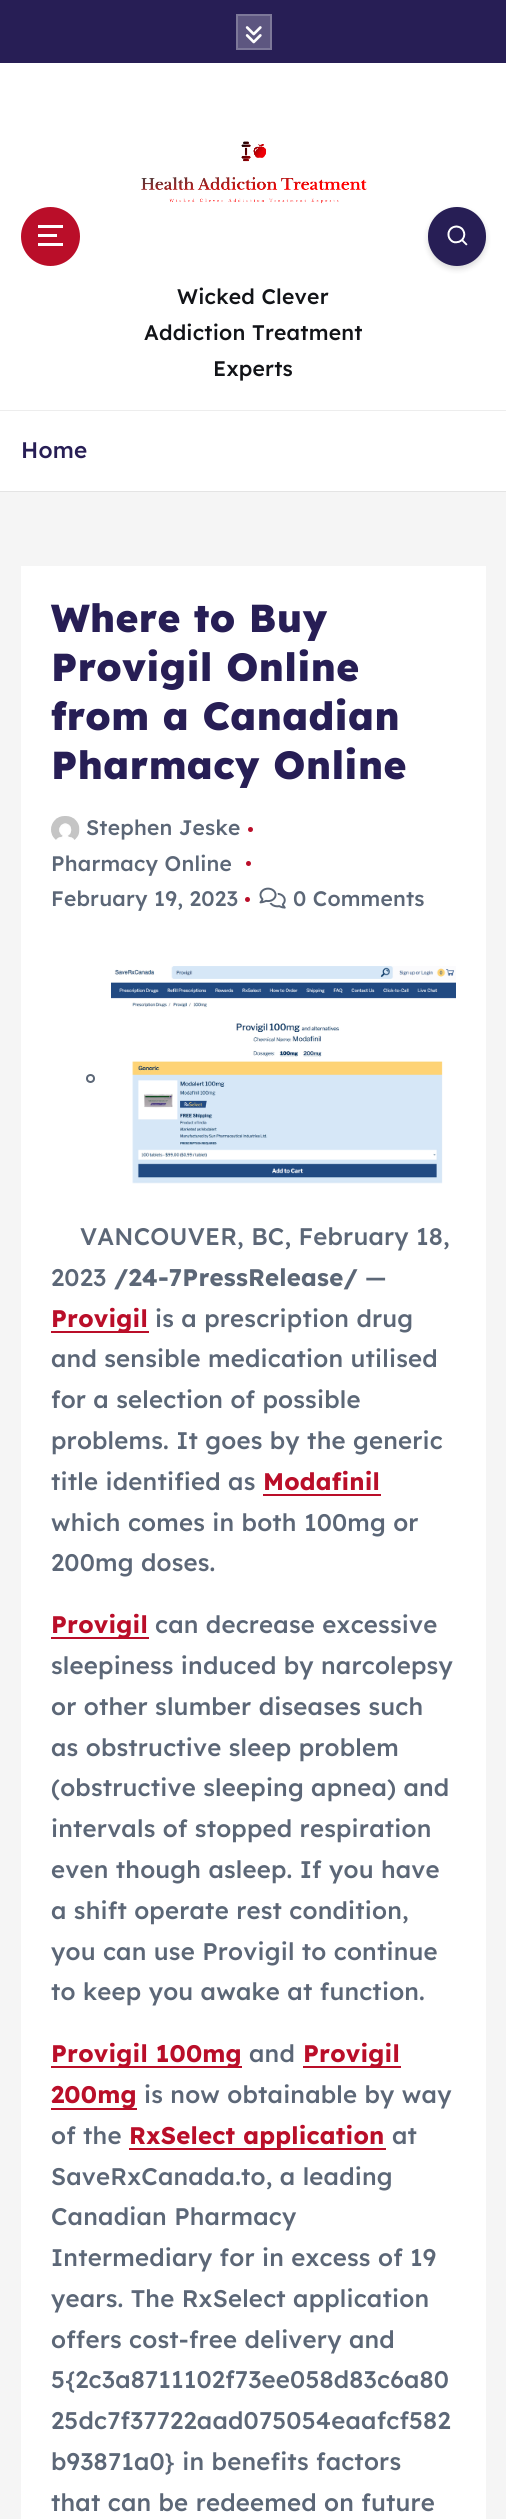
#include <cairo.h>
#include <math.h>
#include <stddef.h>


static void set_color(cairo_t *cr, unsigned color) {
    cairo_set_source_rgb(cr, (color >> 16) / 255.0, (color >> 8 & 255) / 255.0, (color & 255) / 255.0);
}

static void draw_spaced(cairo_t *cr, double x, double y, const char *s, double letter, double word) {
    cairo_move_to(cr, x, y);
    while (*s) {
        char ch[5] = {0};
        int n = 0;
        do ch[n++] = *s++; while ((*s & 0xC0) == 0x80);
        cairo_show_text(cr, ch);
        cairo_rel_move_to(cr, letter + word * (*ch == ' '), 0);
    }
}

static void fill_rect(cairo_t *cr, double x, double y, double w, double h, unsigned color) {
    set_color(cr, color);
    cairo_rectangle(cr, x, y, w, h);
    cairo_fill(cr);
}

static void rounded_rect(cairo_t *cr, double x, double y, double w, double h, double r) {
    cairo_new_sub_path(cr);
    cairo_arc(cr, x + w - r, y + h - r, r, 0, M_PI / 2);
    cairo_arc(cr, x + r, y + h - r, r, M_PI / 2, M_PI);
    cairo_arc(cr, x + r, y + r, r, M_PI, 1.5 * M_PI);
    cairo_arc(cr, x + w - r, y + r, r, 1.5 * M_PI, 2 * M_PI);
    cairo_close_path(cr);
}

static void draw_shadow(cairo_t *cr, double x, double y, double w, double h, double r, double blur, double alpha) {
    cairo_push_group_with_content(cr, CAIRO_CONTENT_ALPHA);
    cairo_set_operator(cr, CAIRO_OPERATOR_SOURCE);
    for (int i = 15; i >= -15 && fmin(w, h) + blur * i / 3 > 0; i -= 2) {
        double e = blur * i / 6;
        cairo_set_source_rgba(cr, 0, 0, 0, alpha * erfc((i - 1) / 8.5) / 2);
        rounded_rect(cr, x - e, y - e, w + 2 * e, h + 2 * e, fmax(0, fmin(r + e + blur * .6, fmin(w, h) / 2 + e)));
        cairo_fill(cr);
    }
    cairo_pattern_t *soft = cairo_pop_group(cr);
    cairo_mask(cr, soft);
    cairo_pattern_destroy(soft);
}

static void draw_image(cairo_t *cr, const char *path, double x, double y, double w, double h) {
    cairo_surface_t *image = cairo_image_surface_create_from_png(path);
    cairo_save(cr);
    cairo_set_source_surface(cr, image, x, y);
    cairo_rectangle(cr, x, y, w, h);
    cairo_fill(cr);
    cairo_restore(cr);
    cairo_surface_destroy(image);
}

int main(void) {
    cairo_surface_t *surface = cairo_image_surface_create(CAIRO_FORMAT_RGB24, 506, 2519);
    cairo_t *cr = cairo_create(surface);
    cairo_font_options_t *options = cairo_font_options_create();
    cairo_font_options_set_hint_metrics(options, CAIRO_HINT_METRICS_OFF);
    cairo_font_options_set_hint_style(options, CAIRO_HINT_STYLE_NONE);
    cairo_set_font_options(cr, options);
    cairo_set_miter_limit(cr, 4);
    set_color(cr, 0xF5F5F5);
    cairo_paint(cr);
    fill_rect(cr, 0, 63, 506, 347, 0xFFFFFF);
    fill_rect(cr, 0, 0, 506, 63, 0x271E55);
    cairo_set_source_rgba(cr, 1, 1, 1, 0.25);
    cairo_rectangle(cr, 236, 14, 36, 36);
    cairo_fill(cr);
    cairo_rectangle(cr, 237, 15, 34, 34);
    cairo_set_source_rgba(cr, 1, 1, 1, 0.2);
    cairo_stroke(cr);
    draw_image(cr, "assets/img1.png", 245, 26, 17, 18);
    fill_rect(cr, 0, 410, 506, 1, 0xEDEDED);
    set_color(cr, 0xBA0E29);
    cairo_arc(cr, 50.5, 236.5, 29.5, 0, 2 * M_PI);
    cairo_fill(cr);
    fill_rect(cr, 38, 225, 25, 3, 0xFFFFFF);
    fill_rect(cr, 38, 234, 19, 3, 0xFFFFFF);
    fill_rect(cr, 38, 243, 25, 3, 0xFFFFFF);
    set_color(cr, 0x000000);
    draw_shadow(cr, 428, 210, 58, 59, 29, 3, 0.15);
    set_color(cr, 0x271E55);
    rounded_rect(cr, 428, 207, 58, 59, 29);
    cairo_fill(cr);
    draw_image(cr, "assets/img2.png", 447, 225, 21, 21);
    draw_image(cr, "assets/img3.png", 141, 141, 226, 63);
    cairo_select_font_face(cr, "Lexend Deca Medium", CAIRO_FONT_SLANT_NORMAL, CAIRO_FONT_WEIGHT_NORMAL);
    cairo_set_font_size(cr, 21.1);
    set_color(cr, 0x121418);
    draw_spaced(cr, 177, 304, "Wicked Clever", 0.2, 0);
    draw_spaced(cr, 144, 340, "Addiction Treatment", 0.2, 0);
    draw_spaced(cr, 213, 376, "Experts", 0.2, 0);
    fill_rect(cr, 0, 491, 506, 1, 0xE4E4E4);
    fill_rect(cr, 0, 411, 506, 80, 0xFFFFFF);
    cairo_set_font_size(cr, 22.5);
    set_color(cr, 0x271E55);
    draw_spaced(cr, 21, 458, "Home", 0.2, 0);
    fill_rect(cr, 21, 566, 465, 1953, 0xFFFFFF);
    cairo_select_font_face(cr, "Lexend Deca ExtraBold", CAIRO_FONT_SLANT_NORMAL, CAIRO_FONT_WEIGHT_NORMAL);
    cairo_set_font_size(cr, 39);
    set_color(cr, 0x271E55);
    draw_spaced(cr, 51, 632, "Where to Buy", 0.2, 0);
    draw_spaced(cr, 51, 681, "Provigil Online", 0.2, 0);
    draw_spaced(cr, 51, 730, "from a Canadian", 0.2, 0);
    draw_spaced(cr, 51, 779, "Pharmacy Online", 0.2, 0);
    draw_image(cr, "assets/img4.png", 51, 816, 29, 24);
    cairo_select_font_face(cr, "Lexend Deca Medium", CAIRO_FONT_SLANT_NORMAL, CAIRO_FONT_WEIGHT_NORMAL);
    cairo_set_font_size(cr, 21);
    set_color(cr, 0x5C6777);
    draw_spaced(cr, 86, 835, "Stephen Jeske", 0.2, 0);
    set_color(cr, 0xBA0E29);
    cairo_new_path(cr);
    cairo_arc(cr, 250.5, 829.5, 2.5, 0, 2 * M_PI);
    cairo_fill(cr);
    set_color(cr, 0x5C6777);
    draw_spaced(cr, 51, 871, "Pharmacy Online", 0.2, 0);
    set_color(cr, 0xBA0E29);
    cairo_new_path(cr);
    cairo_arc(cr, 248.5, 863.5, 2.5, 0, 2 * M_PI);
    cairo_fill(cr);
    set_color(cr, 0x5C6777);
    draw_spaced(cr, 51, 906, "February 19, 2023", 0.2, 0);
    set_color(cr, 0xBA0E29);
    cairo_new_path(cr);
    cairo_arc(cr, 247.5, 899.5, 2.5, 0, 2 * M_PI);
    cairo_fill(cr);
    draw_image(cr, "assets/img5.png", 259, 887, 27, 22);
    set_color(cr, 0x5C6777);
    draw_spaced(cr, 293, 906, "0 Comments", 0.2, 0);
    cairo_new_path(cr);
    cairo_arc(cr, 90.5, 1078.5, 3.5, 0, 2 * M_PI);
    cairo_stroke(cr);
    draw_image(cr, "assets/img6.png", 111, 966, 345, 218);
    cairo_set_font_size(cr, 24);
    draw_spaced(cr, 80, 1245, "VANCOUVER, BC, February 18,", 0.2, 0);
    draw_spaced(cr, 51, 1286, "2023", 0.2, 0);
    cairo_select_font_face(cr, "Lexend Deca", CAIRO_FONT_SLANT_NORMAL, CAIRO_FONT_WEIGHT_BOLD);
    draw_spaced(cr, 114, 1286, "/24-7PressRelease/", 0.2, 0);
    cairo_select_font_face(cr, "Lexend Deca Medium", CAIRO_FONT_SLANT_NORMAL, CAIRO_FONT_WEIGHT_NORMAL);
    draw_spaced(cr, 365, 1286, "—", 0.2, 0);
    fill_rect(cr, 51, 1331, 98, 2, 0xBA0E29);
    cairo_select_font_face(cr, "Lexend Deca", CAIRO_FONT_SLANT_NORMAL, CAIRO_FONT_WEIGHT_BOLD);
    draw_spaced(cr, 51, 1327, "Provigil", 0.2, 0);
    cairo_select_font_face(cr, "Lexend Deca Medium", CAIRO_FONT_SLANT_NORMAL, CAIRO_FONT_WEIGHT_NORMAL);
    set_color(cr, 0x5C6777);
    draw_spaced(cr, 155, 1327, "is a prescription drug", 0.2, 0);
    draw_spaced(cr, 51, 1367, "and sensible medication utilised", 0.2, 0);
    draw_spaced(cr, 51, 1408, "for a selection of possible", 0.2, 0);
    draw_spaced(cr, 51, 1449, "problems. It goes by the generic", 0.2, 0);
    draw_spaced(cr, 51, 1490, "title identified as", 0.2, 0);
    cairo_select_font_face(cr, "Lexend Deca", CAIRO_FONT_SLANT_NORMAL, CAIRO_FONT_WEIGHT_BOLD);
    set_color(cr, 0xBA0E29);
    draw_spaced(cr, 263, 1490, "Modafinil", 0.2, 0);
    fill_rect(cr, 263, 1494, 118, 2, 0xBA0E29);
    cairo_select_font_face(cr, "Lexend Deca Medium", CAIRO_FONT_SLANT_NORMAL, CAIRO_FONT_WEIGHT_NORMAL);
    set_color(cr, 0x5C6777);
    draw_spaced(cr, 51, 1531, "which comes in both 100mg or", 0.2, 0);
    draw_spaced(cr, 51, 1571, "200mg doses.", 0.2, 0);
    fill_rect(cr, 51, 1637, 98, 2, 0xBA0E29);
    cairo_select_font_face(cr, "Lexend Deca", CAIRO_FONT_SLANT_NORMAL, CAIRO_FONT_WEIGHT_BOLD);
    draw_spaced(cr, 51, 1633, "Provigil", 0.2, 0);
    cairo_select_font_face(cr, "Lexend Deca Medium", CAIRO_FONT_SLANT_NORMAL, CAIRO_FONT_WEIGHT_NORMAL);
    set_color(cr, 0x5C6777);
    draw_spaced(cr, 155, 1633, "can decrease excessive", 0.2, 0);
    draw_spaced(cr, 51, 1674, "sleepiness induced by narcolepsy", 0.2, 0);
    draw_spaced(cr, 51, 1715, "or other slumber diseases such", 0.2, 0);
    draw_spaced(cr, 51, 1756, "as obstructive sleep problem", 0.2, 0);
    draw_spaced(cr, 51, 1796, "(obstructive sleeping apnea) and", 0.2, 0);
    draw_spaced(cr, 51, 1837, "intervals of stopped respiration", 0.2, 0);
    draw_spaced(cr, 51, 1878, "even though asleep. If you have", 0.2, 0);
    draw_spaced(cr, 51, 1919, "a shift operate rest condition,", 0.2, 0);
    draw_spaced(cr, 51, 1960, "you can use Provigil to continue", 0.2, 0);
    draw_spaced(cr, 51, 2000, "to keep you awake at function.", 0.2, 0);
    fill_rect(cr, 51, 2066, 191, 2, 0xBA0E29);
    cairo_select_font_face(cr, "Lexend Deca", CAIRO_FONT_SLANT_NORMAL, CAIRO_FONT_WEIGHT_BOLD);
    draw_spaced(cr, 51, 2062, "Provigil 100mg", 0.2, 0);
    cairo_select_font_face(cr, "Lexend Deca Medium", CAIRO_FONT_SLANT_NORMAL, CAIRO_FONT_WEIGHT_NORMAL);
    set_color(cr, 0x5C6777);
    draw_spaced(cr, 249, 2062, "and", 0.2, 0);
    fill_rect(cr, 303, 2066, 98, 2, 0xBA0E29);
    cairo_select_font_face(cr, "Lexend Deca", CAIRO_FONT_SLANT_NORMAL, CAIRO_FONT_WEIGHT_BOLD);
    draw_spaced(cr, 303, 2062, "Provigil", 0.2, 0);
    fill_rect(cr, 51, 2108, 86, 2, 0xBA0E29);
    draw_spaced(cr, 51, 2103, "200mg", 0.2, 0);
    cairo_select_font_face(cr, "Lexend Deca Medium", CAIRO_FONT_SLANT_NORMAL, CAIRO_FONT_WEIGHT_NORMAL);
    set_color(cr, 0x5C6777);
    draw_spaced(cr, 144, 2103, "is now obtainable by way", 0.2, 0);
    draw_spaced(cr, 51, 2144, "of the", 0.2, 0);
    fill_rect(cr, 129, 2148, 257, 2, 0xBA0E29);
    cairo_select_font_face(cr, "Lexend Deca", CAIRO_FONT_SLANT_NORMAL, CAIRO_FONT_WEIGHT_BOLD);
    draw_spaced(cr, 129, 2144, "RxSelect application", 0.2, 0);
    cairo_select_font_face(cr, "Lexend Deca Medium", CAIRO_FONT_SLANT_NORMAL, CAIRO_FONT_WEIGHT_NORMAL);
    set_color(cr, 0x5C6777);
    draw_spaced(cr, 392, 2144, "at", 0.2, 0);
    draw_spaced(cr, 51, 2185, "SaveRxCanada.to, a leading", 0.2, 0);
    draw_spaced(cr, 51, 2225, "Canadian Pharmacy", 0.2, 0);
    draw_spaced(cr, 51, 2266, "Intermediary for in excess of 19", 0.2, 0);
    draw_spaced(cr, 51, 2307, "years. The RxSelect application", 0.2, 0);
    draw_spaced(cr, 51, 2348, "offers cost-free delivery and", 0.2, 0);
    draw_spaced(cr, 51, 2388, "5{2c3a8711102f73ee058d83c6a80", 0.2, 0);
    draw_spaced(cr, 51, 2429, "25dc7f37722aad075054eaafcf582", 0.2, 0);
    draw_spaced(cr, 51, 2470, "b93871a0} in benefits factors", 0.2, 0);
    draw_spaced(cr, 51, 2511, "that can be redeemed on future", 0.2, 0);
    cairo_surface_write_to_png(surface, "output.png");
    cairo_font_options_destroy(options);
    cairo_destroy(cr);
    cairo_surface_destroy(surface);
    return 0;
}
